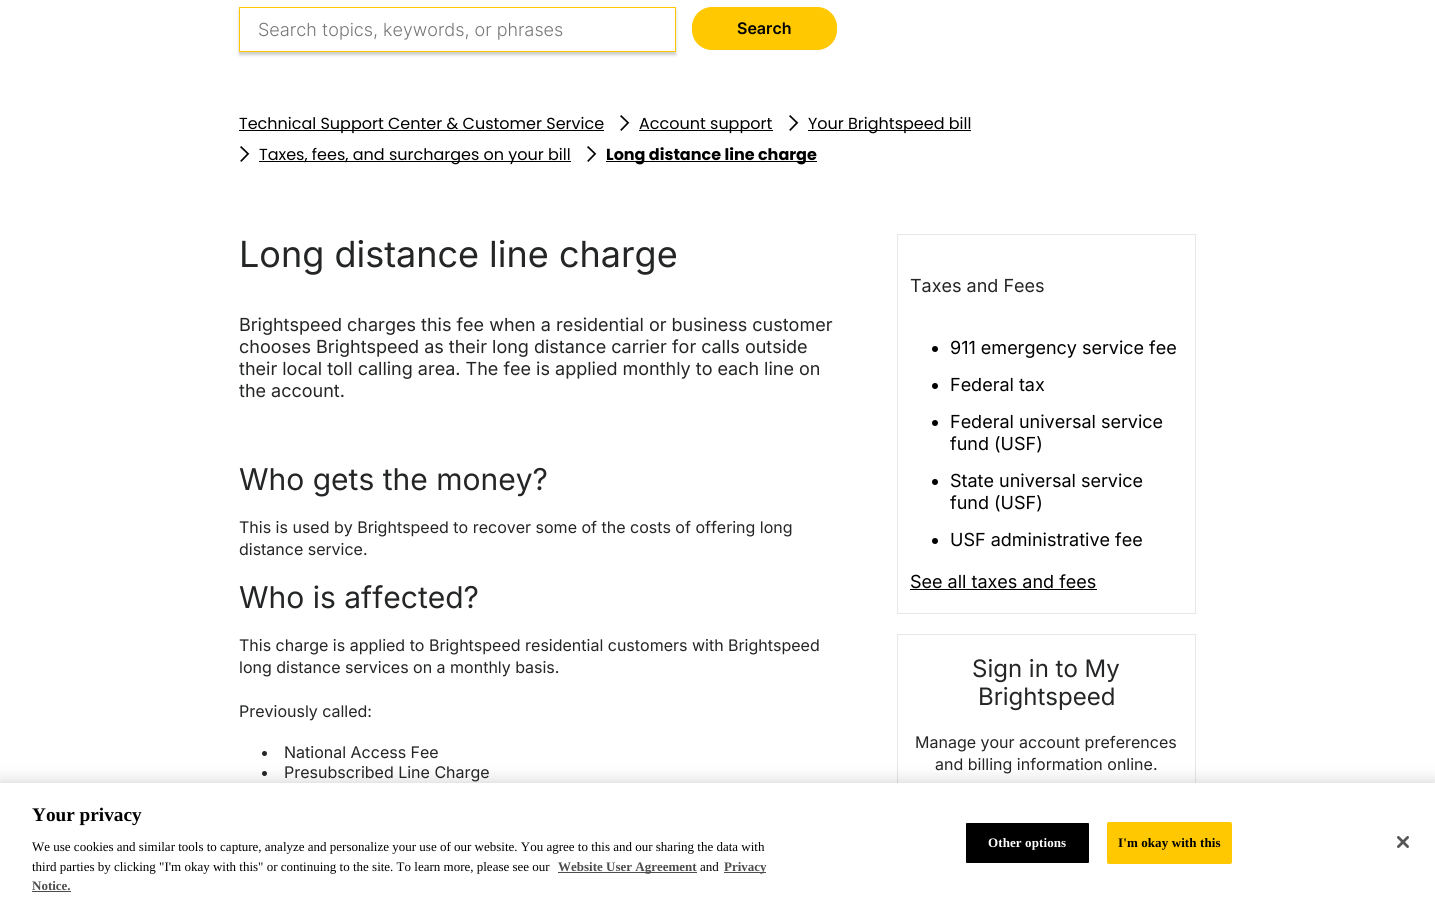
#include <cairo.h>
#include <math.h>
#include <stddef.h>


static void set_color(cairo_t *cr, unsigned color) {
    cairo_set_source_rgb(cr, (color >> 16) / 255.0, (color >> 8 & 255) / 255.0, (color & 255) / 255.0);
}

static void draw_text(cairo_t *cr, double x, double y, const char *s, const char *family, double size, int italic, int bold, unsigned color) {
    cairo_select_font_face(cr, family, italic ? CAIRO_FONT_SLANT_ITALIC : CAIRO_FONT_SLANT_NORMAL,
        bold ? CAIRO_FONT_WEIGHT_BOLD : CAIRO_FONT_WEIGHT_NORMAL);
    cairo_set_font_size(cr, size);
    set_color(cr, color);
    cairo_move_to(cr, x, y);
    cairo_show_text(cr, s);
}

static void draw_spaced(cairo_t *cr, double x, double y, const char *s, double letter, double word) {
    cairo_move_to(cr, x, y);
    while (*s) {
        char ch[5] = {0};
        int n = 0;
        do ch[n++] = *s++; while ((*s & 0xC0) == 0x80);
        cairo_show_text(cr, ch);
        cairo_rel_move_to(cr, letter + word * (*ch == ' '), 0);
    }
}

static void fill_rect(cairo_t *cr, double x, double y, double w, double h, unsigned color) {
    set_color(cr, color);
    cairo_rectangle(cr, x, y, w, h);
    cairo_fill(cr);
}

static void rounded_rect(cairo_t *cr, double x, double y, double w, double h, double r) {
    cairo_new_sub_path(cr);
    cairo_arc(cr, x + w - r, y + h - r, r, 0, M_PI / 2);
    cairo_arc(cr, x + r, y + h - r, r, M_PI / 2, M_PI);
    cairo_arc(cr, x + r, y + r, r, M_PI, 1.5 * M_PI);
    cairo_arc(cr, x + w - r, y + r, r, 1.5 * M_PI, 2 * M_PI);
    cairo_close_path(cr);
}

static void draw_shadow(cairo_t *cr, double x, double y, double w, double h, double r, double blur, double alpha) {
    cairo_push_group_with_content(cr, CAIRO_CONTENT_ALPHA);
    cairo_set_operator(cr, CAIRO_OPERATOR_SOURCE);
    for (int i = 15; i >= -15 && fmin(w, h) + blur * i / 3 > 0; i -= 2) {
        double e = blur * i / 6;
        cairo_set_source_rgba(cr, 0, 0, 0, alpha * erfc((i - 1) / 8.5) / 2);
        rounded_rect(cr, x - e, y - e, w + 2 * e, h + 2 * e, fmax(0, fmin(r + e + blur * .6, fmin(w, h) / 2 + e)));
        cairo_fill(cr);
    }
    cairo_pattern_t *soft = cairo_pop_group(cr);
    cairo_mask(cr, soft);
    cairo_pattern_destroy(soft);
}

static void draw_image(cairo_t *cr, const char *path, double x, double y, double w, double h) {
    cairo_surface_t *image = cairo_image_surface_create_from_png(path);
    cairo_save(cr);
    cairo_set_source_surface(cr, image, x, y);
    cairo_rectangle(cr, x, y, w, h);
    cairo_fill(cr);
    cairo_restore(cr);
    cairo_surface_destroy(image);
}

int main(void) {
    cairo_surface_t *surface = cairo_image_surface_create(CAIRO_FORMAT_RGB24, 1435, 906);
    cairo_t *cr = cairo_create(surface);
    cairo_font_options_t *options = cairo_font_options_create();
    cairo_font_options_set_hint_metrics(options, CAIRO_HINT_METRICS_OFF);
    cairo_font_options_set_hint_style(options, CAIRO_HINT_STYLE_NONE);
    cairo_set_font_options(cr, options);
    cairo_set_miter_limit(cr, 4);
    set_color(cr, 0xFFFFFF);
    cairo_paint(cr);
    cairo_save(cr);
    cairo_set_fill_rule(cr, CAIRO_FILL_RULE_EVEN_ODD);
    cairo_new_path(cr);
    cairo_move_to(cr, 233, 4);
    cairo_line_to(cr, 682, 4);
    cairo_line_to(cr, 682, 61);
    cairo_line_to(cr, 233, 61);
    cairo_close_path(cr);
    cairo_move_to(cr, 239, 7);
    cairo_line_to(cr, 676, 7);
    cairo_line_to(cr, 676, 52);
    cairo_line_to(cr, 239, 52);
    cairo_close_path(cr);
    cairo_clip(cr);
    set_color(cr, 0x000000);
    draw_shadow(cr, 239, 10, 437, 45, 0, 1.5, 0.2);
    cairo_restore(cr);
    cairo_rectangle(cr, 239.5, 7.5, 436, 44);
    set_color(cr, 0xFFC800);
    cairo_set_line_width(cr, 1);
    cairo_stroke(cr);
    draw_text(cr, 258, 36, "Search topics, keywords, or phrases", "Inter Light", 18, 0, 0, 0x757575);
    set_color(cr, 0xFFC800);
    rounded_rect(cr, 692.5, 7.5, 144, 42, 19.5);
    cairo_fill_preserve(cr);
    cairo_stroke(cr);
    draw_text(cr, 737, 34, "Search", "Inter SemiBold", 16, 0, 0, 0x000000);
    fill_rect(cr, 239, 130, 365, 1, 0x000000);
    draw_text(cr, 239, 129, "Technical Support Center & Customer Service", "Poppins", 16, 0, 0, 0x000000);
    draw_image(cr, "assets/img1.png", 620, 115, 10, 16);
    fill_rect(cr, 639, 130, 134, 1, 0x000000);
    draw_text(cr, 639, 129, "Account support", "Poppins", 16, 0, 0, 0x000000);
    draw_image(cr, "assets/img1.png", 789, 115, 10, 16);
    fill_rect(cr, 808, 130, 163, 1, 0x000000);
    draw_text(cr, 808, 129, "Your Brightspeed bill", "Poppins", 16, 0, 0, 0x000000);
    draw_image(cr, "assets/img1.png", 240, 146, 10, 16);
    fill_rect(cr, 259, 161, 312, 1, 0x000000);
    draw_text(cr, 259, 160, "Taxes, fees, and surcharges on your bill", "Poppins", 16, 0, 0, 0x000000);
    draw_image(cr, "assets/img1.png", 587, 146, 10, 16);
    fill_rect(cr, 606, 161, 211, 1, 0x000000);
    draw_text(cr, 606, 160, "Long distance line charge", "Poppins", 16, 0, 1, 0x000000);
    draw_text(cr, 239, 267, "Long distance line charge", "Inter", 36, 0, 0, 0x242526);
    draw_text(cr, 239, 331, "Brightspeed charges this fee when a residential or business customer", "Inter", 18, 0, 0, 0x242526);
    draw_text(cr, 239, 353, "chooses Brightspeed as their long distance carrier for calls outside", "Inter", 18, 0, 0, 0x242526);
    draw_text(cr, 239, 375, "their local toll calling area. The fee is applied monthly to each line on", "Inter", 18, 0, 0, 0x242526);
    draw_text(cr, 239, 397, "the account.", "Inter", 18, 0, 0, 0x242526);
    draw_text(cr, 239, 490, "Who gets the money?", "Inter", 30, 0, 0, 0x242526);
    draw_text(cr, 239, 533, "This is used by Brightspeed to recover some of the costs of offering long", "Inter", 16, 0, 0, 0x242526);
    draw_text(cr, 239, 555, "distance service.", "Inter", 16, 0, 0, 0x242526);
    draw_text(cr, 239, 608, "Who is affected?", "Inter", 30, 0, 0, 0x242526);
    draw_text(cr, 239, 651, "This charge is applied to Brightspeed residential customers with Brightspeed", "Inter", 16, 0, 0, 0x242526);
    draw_text(cr, 239, 673, "long distance services on a monthly basis.", "Inter", 16, 0, 0, 0x242526);
    draw_text(cr, 239, 717, "Previously called:", "Inter", 16, 0, 0, 0x242526);
    cairo_new_path(cr);
    cairo_arc(cr, 264.5, 753.5, 2.5, 0, 2 * M_PI);
    cairo_fill(cr);
    draw_text(cr, 284, 758, "National Access Fee", "Inter", 16, 0, 0, 0x242526);
    cairo_new_path(cr);
    cairo_arc(cr, 264.5, 773.5, 2.5, 0, 2 * M_PI);
    cairo_fill(cr);
    draw_text(cr, 284, 778, "Presubscribed Line Charge", "Inter", 16, 0, 0, 0x242526);
    cairo_rectangle(cr, 897.5, 234.5, 298, 379);
    set_color(cr, 0xE6E7E8);
    cairo_stroke(cr);
    draw_text(cr, 910, 292, "Taxes and Fees", "Inter", 18, 0, 0, 0x242526);
    set_color(cr, 0x000000);
    cairo_new_path(cr);
    cairo_arc(cr, 935, 349, 3, 0, 2 * M_PI);
    cairo_fill(cr);
    draw_text(cr, 950, 354, "911 emergency service fee", "Inter", 18, 0, 0, 0x000000);
    cairo_new_path(cr);
    cairo_arc(cr, 935, 386, 3, 0, 2 * M_PI);
    cairo_fill(cr);
    draw_text(cr, 950, 391, "Federal tax", "Inter", 18, 0, 0, 0x000000);
    cairo_new_path(cr);
    cairo_arc(cr, 935, 423, 3, 0, 2 * M_PI);
    cairo_fill(cr);
    draw_text(cr, 950, 428, "Federal universal service", "Inter", 18, 0, 0, 0x000000);
    draw_text(cr, 950, 450, "fund (USF)", "Inter", 18, 0, 0, 0x000000);
    cairo_new_path(cr);
    cairo_arc(cr, 935, 482, 3, 0, 2 * M_PI);
    cairo_fill(cr);
    draw_text(cr, 950, 487, "State universal service", "Inter", 18, 0, 0, 0x000000);
    draw_text(cr, 950, 509, "fund (USF)", "Inter", 18, 0, 0, 0x000000);
    cairo_new_path(cr);
    cairo_arc(cr, 935, 541, 3, 0, 2 * M_PI);
    cairo_fill(cr);
    draw_text(cr, 950, 546, "USF administrative fee", "Inter", 18, 0, 0, 0x000000);
    draw_text(cr, 910, 588, "See all taxes and fees", "Inter", 18, 0, 0, 0x000000);
    fill_rect(cr, 910, 589, 187, 1, 0x000000);
    cairo_rectangle(cr, 897.5, 634.5, 298, 221);
    set_color(cr, 0xE6E7E8);
    cairo_stroke(cr);
    draw_text(cr, 972, 677, "Sign in to My", "Inter", 24, 0, 0, 0x242526);
    draw_text(cr, 978, 705, "Brightspeed", "Inter", 24, 0, 0, 0x242526);
    draw_text(cr, 915, 748, "Manage your account preferences", "Inter", 16, 0, 0, 0x242526);
    draw_text(cr, 935, 770, "and billing information online.", "Inter", 16, 0, 0, 0x242526);
    set_color(cr, 0x000000);
    draw_shadow(cr, 0, 783, 1435, 123, 0, 9, 0.2);
    fill_rect(cr, 0, 783, 1435, 123, 0xFFFFFF);
    draw_text(cr, 32, 821, "Your privacy", "Liberation Serif", 19.25, 0, 1, 0x000000);
    draw_text(cr, 32, 851, "We use cookies and similar tools to capture, analyze and personalize your use of our website. You agree to this and our sharing the data with", "Liberation Serif", 13, 0, 0, 0x000000);
    draw_text(cr, 32, 871, "third parties by clicking \"I'm okay with this\" or continuing to the site. To learn more, please see our", "Liberation Serif", 13, 0, 0, 0x000000);
    fill_rect(cr, 558, 872, 139, 1, 0x4D4D4D);
    draw_text(cr, 558, 871, "Website User Agreement", "Liberation Serif", 13, 0, 1, 0x4D4D4D);
    draw_text(cr, 700, 871, "and", "Liberation Serif", 13, 0, 0, 0x000000);
    fill_rect(cr, 724, 872, 42, 1, 0x4D4D4D);
    draw_text(cr, 724, 871, "Privacy", "Liberation Serif", 13, 0, 1, 0x4D4D4D);
    draw_text(cr, 32, 890, "Notice.", "Liberation Serif", 13, 0, 1, 0x4D4D4D);
    fill_rect(cr, 32, 891, 39, 1, 0x4D4D4D);
    set_color(cr, 0x000000);
    rounded_rect(cr, 965.5, 822.5, 124, 41, 1.5);
    cairo_fill_preserve(cr);
    set_color(cr, 0xFFFFFF);
    cairo_stroke(cr);
    draw_spaced(cr, 988, 847, "Other options", 0.1, 0);
    set_color(cr, 0xFFC800);
    rounded_rect(cr, 1107.5, 822.5, 124, 41, 1.5);
    cairo_fill_preserve(cr);
    cairo_stroke(cr);
    set_color(cr, 0x000000);
    draw_spaced(cr, 1118, 847, "I'm okay with this", 0.1, 0);
    draw_image(cr, "assets/img2.png", 1397, 836, 12, 12);
    cairo_surface_write_to_png(surface, "output.png");
    cairo_font_options_destroy(options);
    cairo_destroy(cr);
    cairo_surface_destroy(surface);
    return 0;
}
